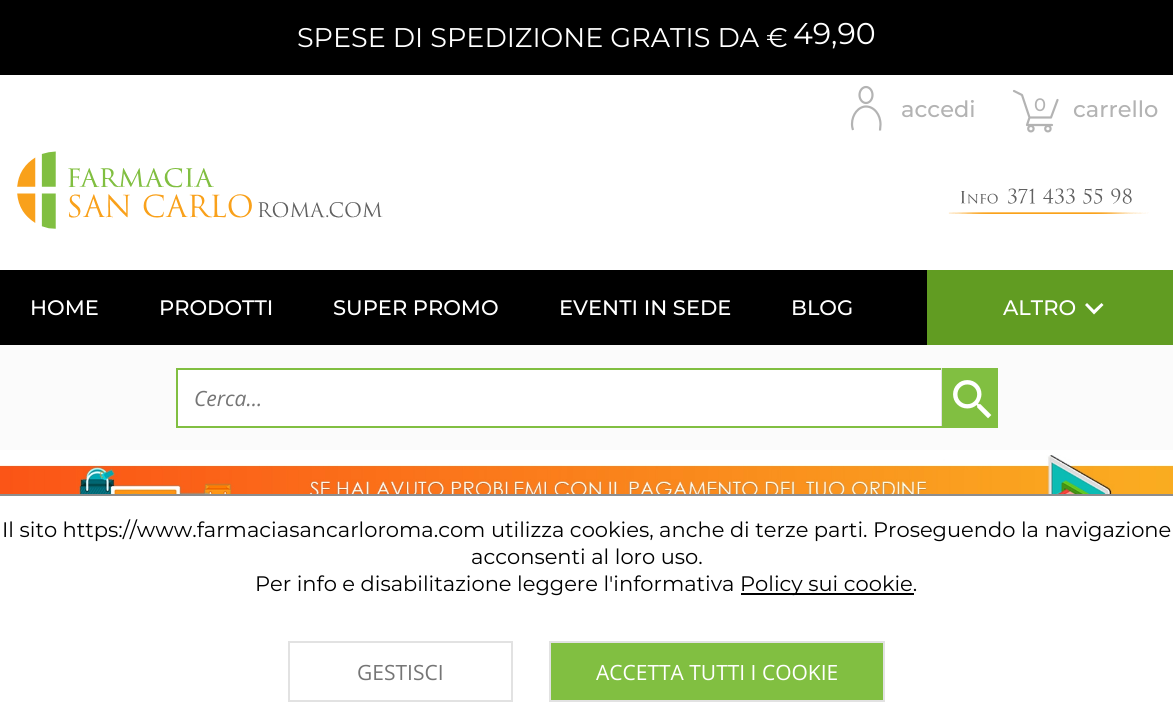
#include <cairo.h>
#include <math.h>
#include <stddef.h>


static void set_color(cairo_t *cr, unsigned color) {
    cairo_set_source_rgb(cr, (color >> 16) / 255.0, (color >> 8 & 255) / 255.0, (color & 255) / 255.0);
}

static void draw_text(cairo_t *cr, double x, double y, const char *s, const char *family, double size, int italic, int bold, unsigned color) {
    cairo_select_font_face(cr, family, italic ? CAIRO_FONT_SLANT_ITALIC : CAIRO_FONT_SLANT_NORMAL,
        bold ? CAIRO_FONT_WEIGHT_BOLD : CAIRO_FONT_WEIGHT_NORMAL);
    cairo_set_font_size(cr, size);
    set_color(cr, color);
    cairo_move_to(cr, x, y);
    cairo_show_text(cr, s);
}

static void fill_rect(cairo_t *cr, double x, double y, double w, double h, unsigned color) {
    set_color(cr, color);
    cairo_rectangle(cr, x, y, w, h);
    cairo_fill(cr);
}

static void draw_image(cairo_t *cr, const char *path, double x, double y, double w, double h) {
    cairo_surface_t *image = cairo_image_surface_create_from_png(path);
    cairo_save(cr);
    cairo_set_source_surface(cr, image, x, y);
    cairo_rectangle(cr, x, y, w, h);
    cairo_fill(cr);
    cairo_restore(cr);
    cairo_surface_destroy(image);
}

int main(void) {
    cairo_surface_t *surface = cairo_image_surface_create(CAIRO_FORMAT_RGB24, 1173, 717);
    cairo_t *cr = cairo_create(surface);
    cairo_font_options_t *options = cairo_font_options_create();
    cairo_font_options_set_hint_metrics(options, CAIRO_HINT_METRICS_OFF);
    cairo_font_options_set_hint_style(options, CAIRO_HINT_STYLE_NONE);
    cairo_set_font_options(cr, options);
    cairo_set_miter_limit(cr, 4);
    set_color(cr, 0xFFFFFF);
    cairo_paint(cr);
    fill_rect(cr, 0, 0, 1173, 75, 0x000000);
    draw_text(cr, 297, 47, "SPESE DI SPEDIZIONE GRATIS DA €", "Montserrat", 27, 0, 0, 0xFFFFFF);
    draw_text(cr, 793, 44, "49,90", "Montserrat", 30, 0, 0, 0xFFFFFF);
    cairo_new_path(cr);
    cairo_move_to(cr, 866, 87);
    cairo_curve_to(cr, 869.5, 87, 872.5, 90.5, 872.5, 95);
    cairo_curve_to(cr, 872.5, 99.5, 869.5, 103, 866, 103);
    cairo_curve_to(cr, 862.5, 103, 859.5, 99.5, 859.5, 95);
    cairo_curve_to(cr, 859.5, 90.5, 862.5, 87, 866, 87);
    cairo_close_path(cr);
    set_color(cr, 0xB3B3B3);
    cairo_set_line_width(cr, 2.2);
    cairo_stroke(cr);
    cairo_new_path(cr);
    cairo_move_to(cr, 853, 130);
    cairo_curve_to(cr, 852.5, 128.5, 852, 126.5, 852, 124);
    cairo_curve_to(cr, 852, 114.5, 858.5, 106.5, 866, 106.5);
    cairo_curve_to(cr, 874, 106.5, 880.5, 114.5, 880.5, 124.5);
    cairo_curve_to(cr, 880.5, 126.5, 880, 128.5, 880, 130.5);
    cairo_stroke(cr);
    draw_text(cr, 901, 117, "accedi", "Montserrat Medium", 22.5, 0, 0, 0xB3B3B3);
    cairo_new_path(cr);
    cairo_move_to(cr, 1014, 91);
    cairo_line_to(cr, 1022, 95);
    cairo_line_to(cr, 1029.5, 117.5);
    cairo_line_to(cr, 1051, 117.5);
    cairo_line_to(cr, 1057.5, 100);
    cairo_move_to(cr, 1052, 125);
    cairo_line_to(cr, 1027, 125);
    cairo_line_to(cr, 1029.5, 117.5);
    cairo_set_line_cap(cr, CAIRO_LINE_CAP_ROUND);
    cairo_set_line_join(cr, CAIRO_LINE_JOIN_ROUND);
    cairo_stroke(cr);
    cairo_arc(cr, 1047.9, 128.7, 2.7, 0, 2 * M_PI);
    cairo_set_line_cap(cr, CAIRO_LINE_CAP_BUTT);
    cairo_set_line_join(cr, CAIRO_LINE_JOIN_MITER);
    cairo_stroke(cr);
    cairo_arc(cr, 1030.9, 128.7, 2.7, 0, 2 * M_PI);
    cairo_stroke(cr);
    draw_text(cr, 1034, 111, "0", "Montserrat Medium", 18, 0, 0, 0xB3B3B3);
    draw_text(cr, 1073, 117, "carrello", "Montserrat Medium", 22.5, 0, 0, 0xB3B3B3);
    draw_image(cr, "assets/img1.png", 17, 151, 1132, 78);
    fill_rect(cr, 0, 270, 927, 75, 0x000000);
    draw_text(cr, 30, 315, "HOME", "Montserrat Medium", 21, 0, 0, 0xFFFFFF);
    draw_text(cr, 159, 315, "PRODOTTI", "Montserrat Medium", 21, 0, 0, 0xFFFFFF);
    draw_text(cr, 333, 315, "SUPER PROMO", "Montserrat Medium", 21, 0, 0, 0xFFFFFF);
    draw_text(cr, 559, 315, "EVENTI IN SEDE", "Montserrat Medium", 21, 0, 0, 0xFFFFFF);
    draw_text(cr, 791, 315, "BLOG", "Montserrat Medium", 21, 0, 0, 0xFFFFFF);
    fill_rect(cr, 927, 270, 246, 75, 0x619C22);
    draw_text(cr, 1003, 315, "ALTRO", "Montserrat Medium", 21, 0, 0, 0xFFFFFF);
    cairo_new_path(cr);
    cairo_move_to(cr, 1087, 303);
    cairo_line_to(cr, 1094, 310);
    cairo_line_to(cr, 1101.5, 303);
    cairo_line_to(cr, 1103.5, 305);
    cairo_line_to(cr, 1094, 314.5);
    cairo_line_to(cr, 1085, 305);
    cairo_close_path(cr);
    cairo_fill(cr);
    fill_rect(cr, 0, 345, 1173, 105, 0xFBFBFB);
    fill_rect(cr, 178, 370, 763, 56, 0xFFFFFF);
    fill_rect(cr, 176, 368, 766, 2, 0x81BF41);
    fill_rect(cr, 941, 368, 1, 60, 0xE2E2E2);
    fill_rect(cr, 176, 426, 766, 2, 0x81BF41);
    fill_rect(cr, 176, 368, 2, 60, 0x81BF41);
    draw_text(cr, 194, 406, "Cerca...", "Open Sans", 21, 1, 0, 0x757575);
    fill_rect(cr, 942, 368, 56, 60, 0x81BF41);
    draw_image(cr, "assets/img2.png", 953, 380, 39, 39);
    draw_image(cr, "assets/img3.png", 0, 455, 1173, 39);
    fill_rect(cr, 0, 494, 1173, 2, 0x8E8D8D);
    draw_text(cr, 2, 537, "Il sito https://www.farmaciasancarloroma.com utilizza cookies, anche di terze parti. Proseguendo la navigazione", "Montserrat", 21, 0, 0, 0x000000);
    draw_text(cr, 471, 564, "acconsenti al loro uso.", "Montserrat", 21, 0, 0, 0x000000);
    draw_text(cr, 255, 591, "Per info e disabilitazione leggere l'informativa", "Montserrat", 21, 0, 0, 0x000000);
    fill_rect(cr, 741, 593, 173, 2, 0x000000);
    draw_text(cr, 740, 591, "Policy sui cookie.", "Montserrat", 21, 0, 0, 0x000000);
    cairo_rectangle(cr, 289, 642, 223, 59);
    set_color(cr, 0xE2E2E2);
    cairo_set_line_width(cr, 2);
    cairo_stroke(cr);
    draw_text(cr, 357, 680, "GESTISCI", "Open Sans", 21, 0, 0, 0x757575);
    set_color(cr, 0x81BF41);
    cairo_rectangle(cr, 550, 642, 334, 59);
    cairo_fill_preserve(cr);
    set_color(cr, 0xE2E2E2);
    cairo_stroke(cr);
    draw_text(cr, 596, 680, "ACCETTA TUTTI I COOKIE", "Open Sans", 21, 0, 0, 0xFFFFFF);
    cairo_surface_write_to_png(surface, "output.png");
    cairo_font_options_destroy(options);
    cairo_destroy(cr);
    cairo_surface_destroy(surface);
    return 0;
}
